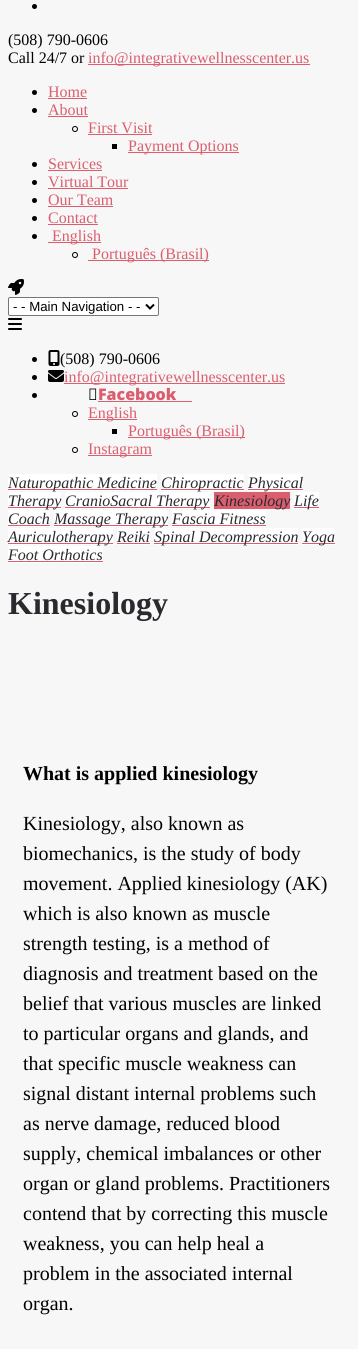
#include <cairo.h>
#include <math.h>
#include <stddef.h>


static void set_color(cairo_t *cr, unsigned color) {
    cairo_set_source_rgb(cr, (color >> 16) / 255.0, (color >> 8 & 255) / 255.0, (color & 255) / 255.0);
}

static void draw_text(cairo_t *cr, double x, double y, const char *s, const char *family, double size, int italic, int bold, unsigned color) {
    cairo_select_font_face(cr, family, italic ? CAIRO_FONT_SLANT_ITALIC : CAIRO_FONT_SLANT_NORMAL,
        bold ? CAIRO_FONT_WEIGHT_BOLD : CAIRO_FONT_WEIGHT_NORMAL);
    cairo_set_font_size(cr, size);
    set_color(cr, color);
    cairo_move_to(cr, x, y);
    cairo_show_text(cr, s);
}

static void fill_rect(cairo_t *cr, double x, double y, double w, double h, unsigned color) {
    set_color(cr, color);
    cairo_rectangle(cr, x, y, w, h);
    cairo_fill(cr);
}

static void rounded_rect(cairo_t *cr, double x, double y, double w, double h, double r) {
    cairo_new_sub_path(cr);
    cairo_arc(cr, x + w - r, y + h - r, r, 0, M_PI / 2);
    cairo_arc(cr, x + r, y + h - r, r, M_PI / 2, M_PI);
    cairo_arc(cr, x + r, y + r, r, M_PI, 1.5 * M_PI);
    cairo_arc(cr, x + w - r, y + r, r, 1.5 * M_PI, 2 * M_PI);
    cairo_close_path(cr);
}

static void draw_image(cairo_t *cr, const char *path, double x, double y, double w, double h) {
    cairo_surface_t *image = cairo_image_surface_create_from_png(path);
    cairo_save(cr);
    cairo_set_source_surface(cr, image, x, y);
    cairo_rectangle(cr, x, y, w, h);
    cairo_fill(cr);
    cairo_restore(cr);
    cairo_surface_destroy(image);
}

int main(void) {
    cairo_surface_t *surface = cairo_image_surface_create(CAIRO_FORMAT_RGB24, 358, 1349);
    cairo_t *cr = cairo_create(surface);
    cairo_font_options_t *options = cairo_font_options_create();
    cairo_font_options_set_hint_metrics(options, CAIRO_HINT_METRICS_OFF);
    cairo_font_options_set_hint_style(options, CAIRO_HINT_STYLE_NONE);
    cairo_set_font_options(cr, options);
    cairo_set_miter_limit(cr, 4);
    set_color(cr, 0xF7F7F7);
    cairo_paint(cr);
    set_color(cr, 0x000000);
    cairo_arc(cr, 34.5, 6.5, 2.5, 0, 2 * M_PI);
    cairo_fill(cr);
    draw_text(cr, 8, 45, "(508) 790-0606", "Liberation Serif", 16, 0, 0, 0x000000);
    draw_text(cr, 8, 63, "Call 24/7 or", "Liberation Serif", 16, 0, 0, 0x000000);
    fill_rect(cr, 88, 64, 222, 1, 0xDB5E6E);
    draw_text(cr, 88, 63, "info@integrativewellnesscenter.us", "Liberation Serif", 16, 0, 0, 0xDB5E6E);
    set_color(cr, 0x000000);
    cairo_new_path(cr);
    cairo_arc(cr, 34.5, 92.5, 2.5, 0, 2 * M_PI);
    cairo_fill(cr);
    draw_text(cr, 48, 97, "Home", "Liberation Serif", 16, 0, 0, 0xDB5E6E);
    fill_rect(cr, 48, 98, 39, 1, 0xDB5E6E);
    set_color(cr, 0x000000);
    cairo_new_path(cr);
    cairo_arc(cr, 34.5, 110.5, 2.5, 0, 2 * M_PI);
    cairo_fill(cr);
    draw_text(cr, 48, 115, "About", "Liberation Serif", 16, 0, 0, 0xDB5E6E);
    fill_rect(cr, 48, 116, 40, 1, 0xDB5E6E);
    cairo_new_path(cr);
    cairo_arc(cr, 75, 129, 2.5, 0, 2 * M_PI);
    set_color(cr, 0x000000);
    cairo_set_line_width(cr, 1);
    cairo_stroke(cr);
    draw_text(cr, 88, 133, "First Visit", "Liberation Serif", 16, 0, 0, 0xDB5E6E);
    fill_rect(cr, 88, 134, 64, 1, 0xDB5E6E);
    fill_rect(cr, 112, 144, 5, 5, 0x000000);
    fill_rect(cr, 128, 152, 111, 1, 0xDB5E6E);
    draw_text(cr, 128, 151, "Payment Options", "Liberation Serif", 16, 0, 0, 0xDB5E6E);
    set_color(cr, 0x000000);
    cairo_new_path(cr);
    cairo_arc(cr, 34.5, 164.5, 2.5, 0, 2 * M_PI);
    cairo_fill(cr);
    draw_text(cr, 48, 169, "Services", "Liberation Serif", 16, 0, 0, 0xDB5E6E);
    fill_rect(cr, 48, 170, 54, 1, 0xDB5E6E);
    set_color(cr, 0x000000);
    cairo_new_path(cr);
    cairo_arc(cr, 34.5, 182.5, 2.5, 0, 2 * M_PI);
    cairo_fill(cr);
    draw_text(cr, 48, 187, "Virtual Tour", "Liberation Serif", 16, 0, 0, 0xDB5E6E);
    fill_rect(cr, 48, 188, 80, 1, 0xDB5E6E);
    set_color(cr, 0x000000);
    cairo_new_path(cr);
    cairo_arc(cr, 34.5, 200.5, 2.5, 0, 2 * M_PI);
    cairo_fill(cr);
    draw_text(cr, 48, 205, "Our Team", "Liberation Serif", 16, 0, 0, 0xDB5E6E);
    fill_rect(cr, 48, 206, 65, 1, 0xDB5E6E);
    set_color(cr, 0x000000);
    cairo_new_path(cr);
    cairo_arc(cr, 34.5, 218.5, 2.5, 0, 2 * M_PI);
    cairo_fill(cr);
    draw_text(cr, 48, 223, "Contact", "Liberation Serif", 16, 0, 0, 0xDB5E6E);
    fill_rect(cr, 48, 224, 50, 1, 0xDB5E6E);
    set_color(cr, 0x000000);
    cairo_new_path(cr);
    cairo_arc(cr, 34.5, 236.5, 2.5, 0, 2 * M_PI);
    cairo_fill(cr);
    fill_rect(cr, 48, 242, 53, 1, 0xDB5E6E);
    draw_text(cr, 52, 241, "English", "Liberation Serif", 16, 0, 0, 0xDB5E6E);
    cairo_new_path(cr);
    cairo_arc(cr, 75, 255, 2.5, 0, 2 * M_PI);
    set_color(cr, 0x000000);
    cairo_stroke(cr);
    fill_rect(cr, 88, 260, 121, 1, 0xDB5E6E);
    draw_text(cr, 92, 259, "Português (Brasil)", "Liberation Serif", 16, 0, 0, 0xDB5E6E);
    draw_image(cr, "assets/img1.png", 8, 279, 16, 16);
    set_color(cr, 0xFFFFFF);
    rounded_rect(cr, 8.5, 297.5, 150, 18, 1.5);
    cairo_fill_preserve(cr);
    set_color(cr, 0x767676);
    cairo_stroke(cr);
    cairo_new_path(cr);
    cairo_move_to(cr, 146, 304.5);
    cairo_line_to(cr, 150, 308.5);
    cairo_line_to(cr, 154, 304.5);
    set_color(cr, 0x000000);
    cairo_set_line_width(cr, 2);
    cairo_stroke(cr);
    draw_text(cr, 13, 311, "- - Main Navigation - -", "Liberation Sans", 13.25, 0, 0, 0x000000);
    draw_image(cr, "assets/img2.png", 8, 318, 14, 12);
    cairo_arc(cr, 34.5, 359.5, 2.5, 0, 2 * M_PI);
    cairo_fill(cr);
    draw_image(cr, "assets/img3.png", 48, 350, 12, 16);
    draw_text(cr, 60, 364, "(508) 790-0606", "Liberation Serif", 16, 0, 0, 0x000000);
    cairo_new_path(cr);
    cairo_arc(cr, 34.5, 377.5, 2.5, 0, 2 * M_PI);
    cairo_fill(cr);
    draw_image(cr, "assets/img4.png", 48, 370, 16, 12);
    fill_rect(cr, 64, 383, 221, 1, 0xDB5E6E);
    draw_text(cr, 64, 382, "info@integrativewellnesscenter.us", "Liberation Serif", 16, 0, 0, 0xDB5E6E);
    set_color(cr, 0x000000);
    cairo_new_path(cr);
    cairo_arc(cr, 34.5, 395.5, 2.5, 0, 2 * M_PI);
    cairo_fill(cr);
    draw_image(cr, "assets/img5.png", 89, 388, 8, 12);
    draw_text(cr, 98, 400, "Facebook", "Noto Sans Black", 16, 0, 0, 0xDB5E6E);
    fill_rect(cr, 98, 401, 94, 1, 0xDB5E6E);
    cairo_new_path(cr);
    cairo_arc(cr, 75, 414, 2.5, 0, 2 * M_PI);
    set_color(cr, 0x000000);
    cairo_set_line_width(cr, 1);
    cairo_stroke(cr);
    fill_rect(cr, 88, 419, 49, 1, 0xDB5E6E);
    draw_text(cr, 88, 418, "English", "Liberation Serif", 16, 0, 0, 0xDB5E6E);
    fill_rect(cr, 112, 429, 5, 5, 0x000000);
    fill_rect(cr, 128, 437, 117, 1, 0xDB5E6E);
    draw_text(cr, 128, 436, "Português (Brasil)", "Liberation Serif", 16, 0, 0, 0xDB5E6E);
    cairo_new_path(cr);
    cairo_arc(cr, 75, 450, 2.5, 0, 2 * M_PI);
    set_color(cr, 0x000000);
    cairo_stroke(cr);
    fill_rect(cr, 88, 455, 64, 1, 0xDB5E6E);
    draw_text(cr, 88, 454, "Instagram", "Liberation Serif", 16, 0, 0, 0xDB5E6E);
    fill_rect(cr, 8, 474, 149, 17, 0xFFFFFF);
    fill_rect(cr, 8, 489, 149, 1, 0xDB5E6E);
    draw_text(cr, 8, 488, "Naturopathic Medicine", "Liberation Serif", 16, 1, 0, 0x292A2E);
    fill_rect(cr, 161, 474, 83, 17, 0xFFFFFF);
    fill_rect(cr, 161, 489, 83, 1, 0xDB5E6E);
    draw_text(cr, 161, 488, "Chiropractic", "Liberation Serif", 16, 1, 0, 0x292A2E);
    fill_rect(cr, 248, 474, 55, 17, 0xFFFFFF);
    fill_rect(cr, 248, 489, 55, 1, 0xDB5E6E);
    draw_text(cr, 248, 488, "Physical", "Liberation Serif", 16, 1, 0, 0x292A2E);
    fill_rect(cr, 8, 492, 53, 17, 0xFFFFFF);
    fill_rect(cr, 8, 507, 53, 1, 0xDB5E6E);
    draw_text(cr, 8, 506, "Therapy", "Liberation Serif", 16, 1, 0, 0x292A2E);
    fill_rect(cr, 65, 492, 145, 17, 0xFFFFFF);
    fill_rect(cr, 65, 507, 145, 1, 0xDB5E6E);
    draw_text(cr, 65, 506, "CranioSacral Therapy", "Liberation Serif", 16, 1, 0, 0x292A2E);
    fill_rect(cr, 214, 492, 76, 17, 0xDB5E6E);
    draw_text(cr, 214, 506, "Kinesiology", "Liberation Serif", 16, 1, 0, 0x292A2E);
    fill_rect(cr, 294, 492, 25, 17, 0xFFFFFF);
    fill_rect(cr, 294, 507, 25, 1, 0xDB5E6E);
    draw_text(cr, 294, 506, "Life", "Liberation Serif", 16, 1, 0, 0x292A2E);
    fill_rect(cr, 8, 510, 42, 17, 0xFFFFFF);
    draw_text(cr, 8, 524, "Coach", "Liberation Serif", 16, 1, 0, 0x292A2E);
    fill_rect(cr, 8, 525, 42, 1, 0xDB5E6E);
    fill_rect(cr, 54, 510, 114, 17, 0xFFFFFF);
    fill_rect(cr, 54, 525, 114, 1, 0xDB5E6E);
    draw_text(cr, 54, 524, "Massage Therapy", "Liberation Serif", 16, 1, 0, 0x292A2E);
    fill_rect(cr, 172, 510, 94, 17, 0xFFFFFF);
    draw_text(cr, 172, 524, "Fascia Fitness", "Liberation Serif", 16, 1, 0, 0x292A2E);
    fill_rect(cr, 172, 525, 94, 1, 0xDB5E6E);
    fill_rect(cr, 8, 528, 105, 17, 0xFFFFFF);
    fill_rect(cr, 8, 543, 105, 1, 0xDB5E6E);
    draw_text(cr, 8, 542, "Auriculotherapy", "Liberation Serif", 16, 1, 0, 0x292A2E);
    fill_rect(cr, 117, 528, 33, 17, 0xFFFFFF);
    draw_text(cr, 117, 542, "Reiki", "Liberation Serif", 16, 1, 0, 0x292A2E);
    fill_rect(cr, 117, 543, 33, 1, 0xDB5E6E);
    fill_rect(cr, 154, 528, 144, 17, 0xFFFFFF);
    fill_rect(cr, 154, 543, 144, 1, 0xDB5E6E);
    draw_text(cr, 154, 542, "Spinal Decompression", "Liberation Serif", 16, 1, 0, 0x292A2E);
    fill_rect(cr, 302, 528, 33, 17, 0xFFFFFF);
    fill_rect(cr, 302, 543, 33, 1, 0xDB5E6E);
    draw_text(cr, 302, 542, "Yoga", "Liberation Serif", 16, 1, 0, 0x292A2E);
    fill_rect(cr, 8, 546, 95, 17, 0xFFFFFF);
    draw_text(cr, 8, 560, "Foot Orthotics", "Liberation Serif", 16, 1, 0, 0x292A2E);
    fill_rect(cr, 8, 561, 95, 1, 0xDB5E6E);
    draw_text(cr, 8, 614, "Kinesiology", "Liberation Serif", 32, 0, 1, 0x292A2E);
    draw_text(cr, 23, 780, "What is applied kinesiology", "Liberation Serif", 20, 0, 1, 0x000000);
    draw_text(cr, 23, 830, "Kinesiology, also known as", "Liberation Serif", 20, 0, 0, 0x000000);
    draw_text(cr, 23, 860, "biomechanics, is the study of body", "Liberation Serif", 20, 0, 0, 0x000000);
    draw_text(cr, 23, 890, "movement. Applied kinesiology (AK)", "Liberation Serif", 20, 0, 0, 0x000000);
    draw_text(cr, 23, 920, "which is also known as muscle", "Liberation Serif", 20, 0, 0, 0x000000);
    draw_text(cr, 23, 950, "strength testing, is a method of", "Liberation Serif", 20, 0, 0, 0x000000);
    draw_text(cr, 23, 980, "diagnosis and treatment based on the", "Liberation Serif", 20, 0, 0, 0x000000);
    draw_text(cr, 23, 1010, "belief that various muscles are linked", "Liberation Serif", 20, 0, 0, 0x000000);
    draw_text(cr, 23, 1040, "to particular organs and glands, and", "Liberation Serif", 20, 0, 0, 0x000000);
    draw_text(cr, 23, 1070, "that specific muscle weakness can", "Liberation Serif", 20, 0, 0, 0x000000);
    draw_text(cr, 23, 1100, "signal distant internal problems such", "Liberation Serif", 20, 0, 0, 0x000000);
    draw_text(cr, 23, 1130, "as nerve damage, reduced blood", "Liberation Serif", 20, 0, 0, 0x000000);
    draw_text(cr, 23, 1160, "supply, chemical imbalances or other", "Liberation Serif", 20, 0, 0, 0x000000);
    draw_text(cr, 23, 1190, "organ or gland problems. Practitioners", "Liberation Serif", 20, 0, 0, 0x000000);
    draw_text(cr, 23, 1220, "contend that by correcting this muscle", "Liberation Serif", 20, 0, 0, 0x000000);
    draw_text(cr, 23, 1250, "weakness, you can help heal a", "Liberation Serif", 20, 0, 0, 0x000000);
    draw_text(cr, 23, 1280, "problem in the associated internal", "Liberation Serif", 20, 0, 0, 0x000000);
    draw_text(cr, 23, 1310, "organ.", "Liberation Serif", 20, 0, 0, 0x000000);
    cairo_surface_write_to_png(surface, "output.png");
    cairo_font_options_destroy(options);
    cairo_destroy(cr);
    cairo_surface_destroy(surface);
    return 0;
}
